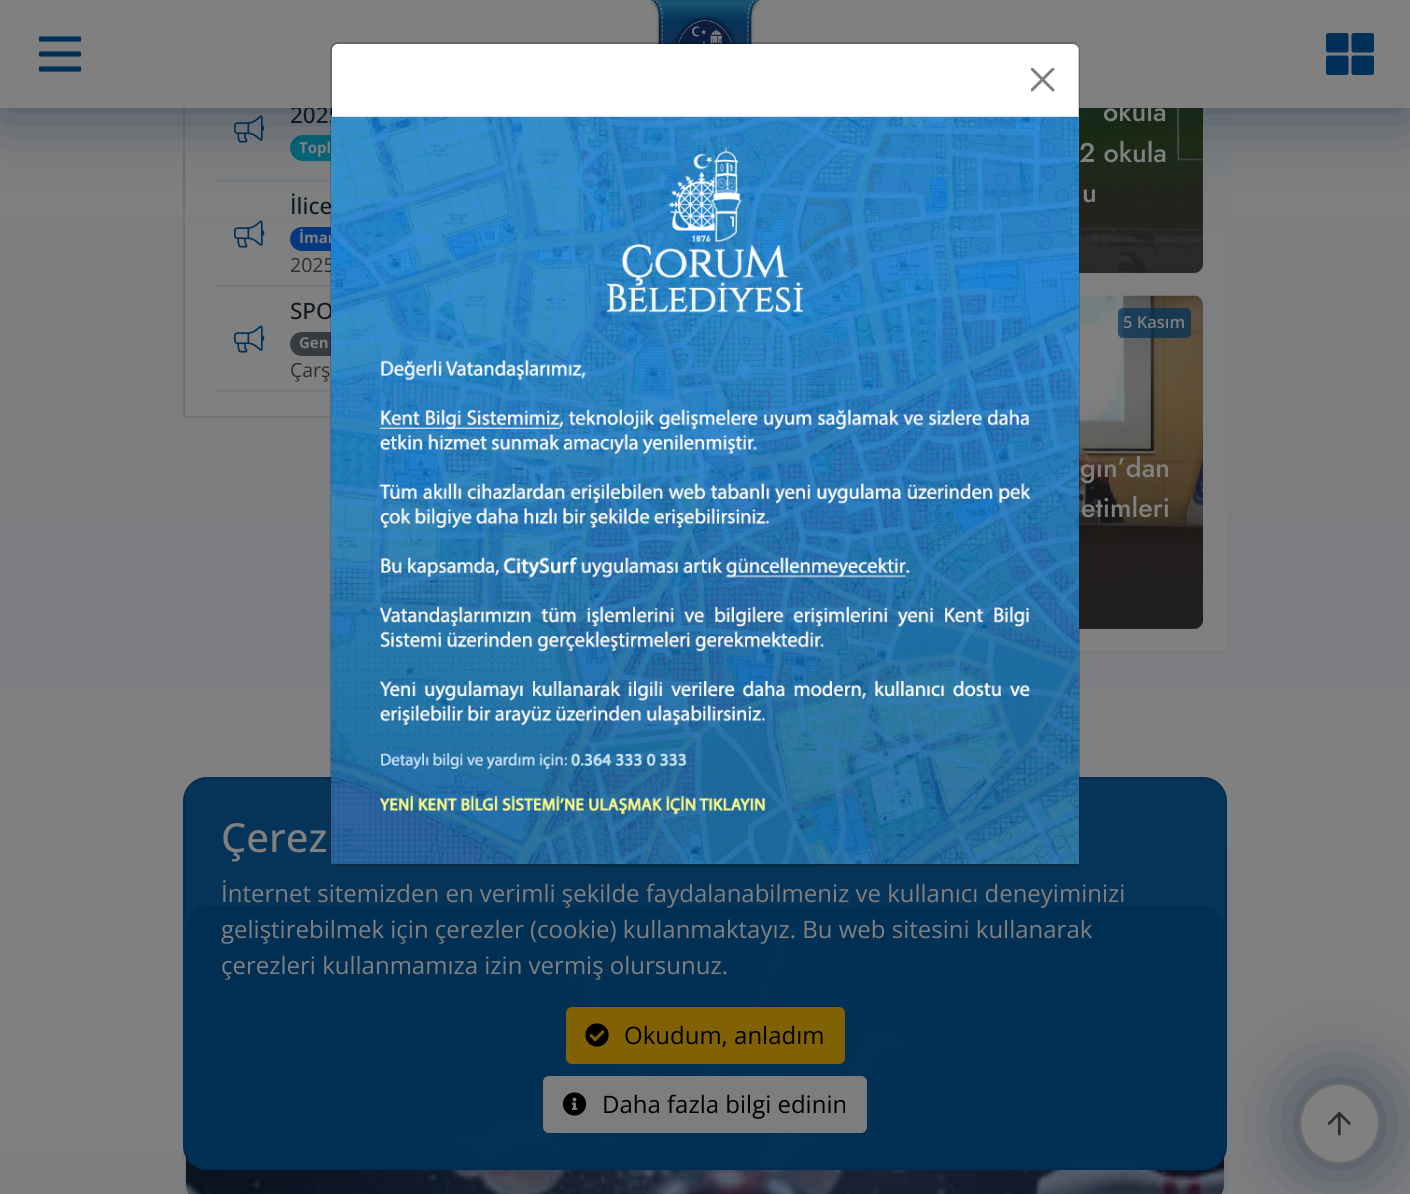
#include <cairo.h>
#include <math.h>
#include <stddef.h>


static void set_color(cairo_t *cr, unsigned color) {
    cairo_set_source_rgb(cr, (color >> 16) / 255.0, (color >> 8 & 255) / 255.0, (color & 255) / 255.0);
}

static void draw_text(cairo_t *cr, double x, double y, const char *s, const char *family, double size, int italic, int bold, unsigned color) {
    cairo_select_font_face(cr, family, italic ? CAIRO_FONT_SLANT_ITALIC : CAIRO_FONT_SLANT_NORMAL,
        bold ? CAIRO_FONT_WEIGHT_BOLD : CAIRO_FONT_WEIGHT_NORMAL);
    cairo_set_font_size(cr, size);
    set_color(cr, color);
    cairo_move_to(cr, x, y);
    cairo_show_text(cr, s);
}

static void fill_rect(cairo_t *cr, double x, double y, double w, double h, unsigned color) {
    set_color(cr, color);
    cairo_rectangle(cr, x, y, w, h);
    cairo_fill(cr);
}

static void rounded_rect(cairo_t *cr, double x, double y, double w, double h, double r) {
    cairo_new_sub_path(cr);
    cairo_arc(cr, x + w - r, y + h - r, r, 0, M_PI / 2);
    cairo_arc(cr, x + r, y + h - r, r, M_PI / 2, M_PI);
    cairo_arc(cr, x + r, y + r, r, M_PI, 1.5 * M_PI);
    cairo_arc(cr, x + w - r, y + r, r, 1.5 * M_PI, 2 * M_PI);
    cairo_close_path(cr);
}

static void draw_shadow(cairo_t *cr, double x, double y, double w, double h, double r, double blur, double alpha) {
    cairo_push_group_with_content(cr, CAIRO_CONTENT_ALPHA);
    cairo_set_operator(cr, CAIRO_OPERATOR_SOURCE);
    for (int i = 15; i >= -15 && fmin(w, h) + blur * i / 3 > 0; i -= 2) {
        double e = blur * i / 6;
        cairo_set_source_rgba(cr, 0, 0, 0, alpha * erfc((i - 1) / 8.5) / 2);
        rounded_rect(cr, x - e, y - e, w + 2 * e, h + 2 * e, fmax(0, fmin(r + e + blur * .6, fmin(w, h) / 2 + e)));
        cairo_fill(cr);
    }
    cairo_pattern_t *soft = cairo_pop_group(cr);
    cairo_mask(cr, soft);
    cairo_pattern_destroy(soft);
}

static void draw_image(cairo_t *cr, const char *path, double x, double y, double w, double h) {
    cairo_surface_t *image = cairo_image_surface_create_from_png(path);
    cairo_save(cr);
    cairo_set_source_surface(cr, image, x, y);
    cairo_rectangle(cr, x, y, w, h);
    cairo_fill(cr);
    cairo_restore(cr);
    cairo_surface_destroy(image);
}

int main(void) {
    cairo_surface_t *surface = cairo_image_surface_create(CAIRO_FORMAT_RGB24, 1410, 1194);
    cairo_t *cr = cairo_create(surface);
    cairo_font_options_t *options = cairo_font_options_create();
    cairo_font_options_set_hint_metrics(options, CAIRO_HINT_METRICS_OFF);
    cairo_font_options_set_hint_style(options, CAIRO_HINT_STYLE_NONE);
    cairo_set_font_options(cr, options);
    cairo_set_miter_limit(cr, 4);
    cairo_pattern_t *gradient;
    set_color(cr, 0xFFFFFF);
    cairo_paint(cr);
    gradient = cairo_pattern_create_linear(705, 687, 705, -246);
    cairo_pattern_add_color_stop_rgba(gradient, 0, 0.482, 0.49, 0.502, 1);
    cairo_pattern_add_color_stop_rgba(gradient, 1, 0.502, 0.502, 0.502, 1);
    cairo_set_source(cr, gradient);
    cairo_pattern_destroy(gradient);
    cairo_rectangle(cr, 0, 108, 1410, 579);
    cairo_fill(cr);
    fill_rect(cr, 185, 221, 147, 195, 0x808080);
    fill_rect(cr, 183, 416, 148, 2, 0x6F7173);
    fill_rect(cr, 183, 108, 2, 309, 0x6F7173);
    fill_rect(cr, 216, 180, 115, 2, 0x73787C);
    draw_image(cr, "assets/img6.png", 234, 115, 31, 28);
    set_color(cr, 0x076578);
    rounded_rect(cr, 290, 135, 79, 26, 13);
    cairo_fill(cr);
    draw_image(cr, "assets/img6.png", 234, 220, 31, 28);
    set_color(cr, 0x1D1E23);
    draw_shadow(cr, 633, -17, 594, 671, 8, 3, 0.05);
    gradient = cairo_pattern_create_linear(930, -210, 930, 651);
    cairo_pattern_add_color_stop_rgba(gradient, 0, 0.475, 0.49, 0.502, 1);
    cairo_pattern_add_color_stop_rgba(gradient, 1, 0.502, 0.502, 0.502, 1);
    cairo_set_source(cr, gradient);
    cairo_pattern_destroy(gradient);
    rounded_rect(cr, 633, -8, 594, 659, 8);
    cairo_fill(cr);
    draw_image(cr, "assets/img7.png", 1079, 108, 124, 165);
    gradient = cairo_pattern_create_linear(1073, 273, 1073, -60);
    cairo_pattern_add_color_stop_rgba(gradient, 0, 0.133, 0.133, 0.133, 0.9);
    cairo_pattern_add_color_stop_rgba(gradient, 0.25, 0.133, 0.133, 0.133, 0.8);
    cairo_pattern_add_color_stop_rgba(gradient, 0.4, 0.133, 0.133, 0.133, 0.2);
    cairo_pattern_add_color_stop_rgba(gradient, 0.7, 0.133, 0.133, 0.133, 0);
    cairo_pattern_add_color_stop_rgba(gradient, 1, 0.133, 0.133, 0.133, 0);
    cairo_set_source(cr, gradient);
    cairo_pattern_destroy(gradient);
    rounded_rect(cr, 942, -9, 261, 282, 9);
    cairo_fill(cr);
    set_color(cr, 0x071D3B);
    draw_shadow(cr, 0, 0, 1410, 108, 0, 37.5, 0.5);
    draw_text(cr, 290, 123, "2025", "Open Sans Medium", 22.5, 0, 0, 0x11181F);
    fill_rect(cr, 0, 0, 1410, 108, 0x808080);
    draw_image(cr, "assets/img1.png", 650, 0, 110, 44);
    draw_image(cr, "assets/img2.png", 39, 36, 42, 36);
    draw_image(cr, "assets/img3.png", 1326, 33, 48, 42);
    set_color(cr, 0x07377F);
    rounded_rect(cr, 290, 227, 156, 24, 12);
    cairo_fill(cr);
    draw_text(cr, 299, 243, "İmar", "Open Sans", 15, 0, 1, 0x808080);
    draw_text(cr, 290, 272, "2025", "Open Sans", 19.5, 0, 0, 0x2E2E2E);
    set_color(cr, 0x363B3F);
    rounded_rect(cr, 290, 332, 61, 24, 12);
    cairo_fill(cr);
    draw_image(cr, "assets/img8.png", 1079, 295, 124, 334);
    gradient = cairo_pattern_create_linear(1073, 629, 1073, 296);
    cairo_pattern_add_color_stop_rgba(gradient, 0, 0.133, 0.133, 0.133, 0.9);
    cairo_pattern_add_color_stop_rgba(gradient, 0.25, 0.133, 0.133, 0.133, 0.8);
    cairo_pattern_add_color_stop_rgba(gradient, 0.4, 0.133, 0.133, 0.133, 0.2);
    cairo_pattern_add_color_stop_rgba(gradient, 0.7, 0.133, 0.133, 0.133, 0);
    cairo_pattern_add_color_stop_rgba(gradient, 1, 0.133, 0.133, 0.133, 0);
    cairo_set_source(cr, gradient);
    cairo_pattern_destroy(gradient);
    rounded_rect(cr, 942, 296, 261, 333, 9);
    cairo_fill(cr);
    gradient = cairo_pattern_create_linear(705, 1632, 705, 687);
    cairo_pattern_add_color_stop_rgba(gradient, 0, 0.482, 0.49, 0.502, 1);
    cairo_pattern_add_color_stop_rgba(gradient, 1, 0.502, 0.502, 0.502, 1);
    cairo_set_source(cr, gradient);
    cairo_pattern_destroy(gradient);
    cairo_rectangle(cr, 0, 687, 1410, 507);
    cairo_fill(cr);
    rounded_rect(cr, 565, 799, 280, 67, 33.5);
    set_color(cr, 0x003157);
    cairo_stroke(cr);
    set_color(cr, 0x808080);
    rounded_rect(cr, 184.5, 904.5, 1041, 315, 22.5);
    cairo_fill_preserve(cr);
    set_color(cr, 0x797A7B);
    cairo_set_line_width(cr, 3);
    cairo_stroke(cr);
    draw_image(cr, "assets/img9.png", 186, 906, 1038, 288);
    set_color(cr, 0x071D3B);
    draw_shadow(cr, 1299, 1083, 81, 81, 40.5, 37.5, 0.5);
    cairo_set_source_rgba(cr, 0, 0.192, 0.341, 0.95);
    rounded_rect(cr, 184, 778, 1042, 391, 23);
    cairo_fill_preserve(cr);
    set_color(cr, 0x002D51);
    cairo_set_line_width(cr, 2);
    cairo_stroke(cr);
    set_color(cr, 0xFFFFFF);
    rounded_rect(cr, 332, 44, 747, 820, 6);
    cairo_fill(cr);
    fill_rect(cr, 216, 285, 115, 2, 0x73787C);
    draw_text(cr, 290, 214, "İlice", "Open Sans Medium", 22.5, 0, 0, 0x11181F);
    fill_rect(cr, 216, 390, 115, 2, 0x73787C);
    draw_text(cr, 290, 319, "SPO", "Open Sans Medium", 22.5, 0, 0, 0x11181F);
    draw_text(cr, 1079, 162, "2 okula", "Jost Medium", 27, 0, 0, 0x808080);
    rounded_rect(cr, 331, 43, 748, 822, 7);
    cairo_set_source_rgba(cr, 0, 0, 0, 0.2);
    cairo_stroke(cr);
    fill_rect(cr, 332, 116, 747, 1, 0xDEE2E6);
    draw_image(cr, "assets/img4.png", 1031, 68, 24, 24);
    draw_image(cr, "assets/img5.png", 331, 117, 748, 747);
    draw_text(cr, 299, 153, "Topl", "Open Sans", 15, 0, 1, 0x808080);
    draw_image(cr, "assets/img6.png", 234, 325, 31, 28);
    draw_text(cr, 299, 348, "Gen", "Open Sans", 15, 0, 1, 0x808080);
    draw_text(cr, 290, 377, "Çarş", "Open Sans", 19.5, 0, 0, 0x2E2E2E);
    draw_text(cr, 1103, 121, "okula", "Jost Medium", 27, 0, 0, 0x808080);
    draw_text(cr, 1082, 202, "u", "Jost Medium", 27, 0, 0, 0x808080);
    cairo_set_source_rgba(cr, 0, 0.192, 0.341, 0.7);
    rounded_rect(cr, 1118, 308, 73, 30, 5);
    cairo_fill(cr);
    draw_text(cr, 1123, 328, "5 Kasım", "Open Sans SemiBold", 16.5, 0, 0, 0x808080);
    draw_text(cr, 1080, 477, "gın’dan", "Jost Medium", 27, 0, 0, 0x808080);
    draw_text(cr, 1081, 517, "etimleri", "Jost Medium", 27, 0, 0, 0x808080);
    draw_text(cr, 221, 852, "Çerez", "Open Sans Medium", 40, 0, 0, 0x808080);
    draw_text(cr, 221, 902, "İnternet sitemizden en verimli şekilde faydalanabilmeniz ve kullanıcı deneyiminizi", "Open Sans", 24, 0, 0, 0x808080);
    draw_text(cr, 221, 938, "geliştirebilmek için çerezler (cookie) kullanmaktayız. Bu web sitesini kullanarak", "Open Sans", 24, 0, 0, 0x808080);
    draw_text(cr, 221, 974, "çerezleri kullanmamıza izin vermiş olursunuz.", "Open Sans", 24, 0, 0, 0x808080);
    set_color(cr, 0x806104);
    rounded_rect(cr, 567, 1008, 277, 55, 5);
    cairo_fill_preserve(cr);
    cairo_stroke(cr);
    draw_image(cr, "assets/img10.png", 585, 1023, 24, 24);
    draw_text(cr, 624, 1044, "Okudum, anladım", "Open Sans", 24, 0, 0, 0x000000);
    set_color(cr, 0x7C7D7D);
    rounded_rect(cr, 544, 1077, 322, 55, 5);
    cairo_fill_preserve(cr);
    cairo_stroke(cr);
    draw_image(cr, "assets/img11.png", 562, 1092, 25, 24);
    draw_text(cr, 602, 1113, "Daha fazla bilgi edinin", "Open Sans", 24, 0, 0, 0x000000);
    set_color(cr, 0x808080);
    cairo_new_path(cr);
    cairo_arc(cr, 1339.5, 1123.5, 39.5, 0, 2 * M_PI);
    cairo_fill_preserve(cr);
    set_color(cr, 0x6A6A6A);
    cairo_stroke(cr);
    draw_image(cr, "assets/img12.png", 1327, 1111, 24, 25);
    cairo_surface_write_to_png(surface, "output.png");
    cairo_font_options_destroy(options);
    cairo_destroy(cr);
    cairo_surface_destroy(surface);
    return 0;
}
